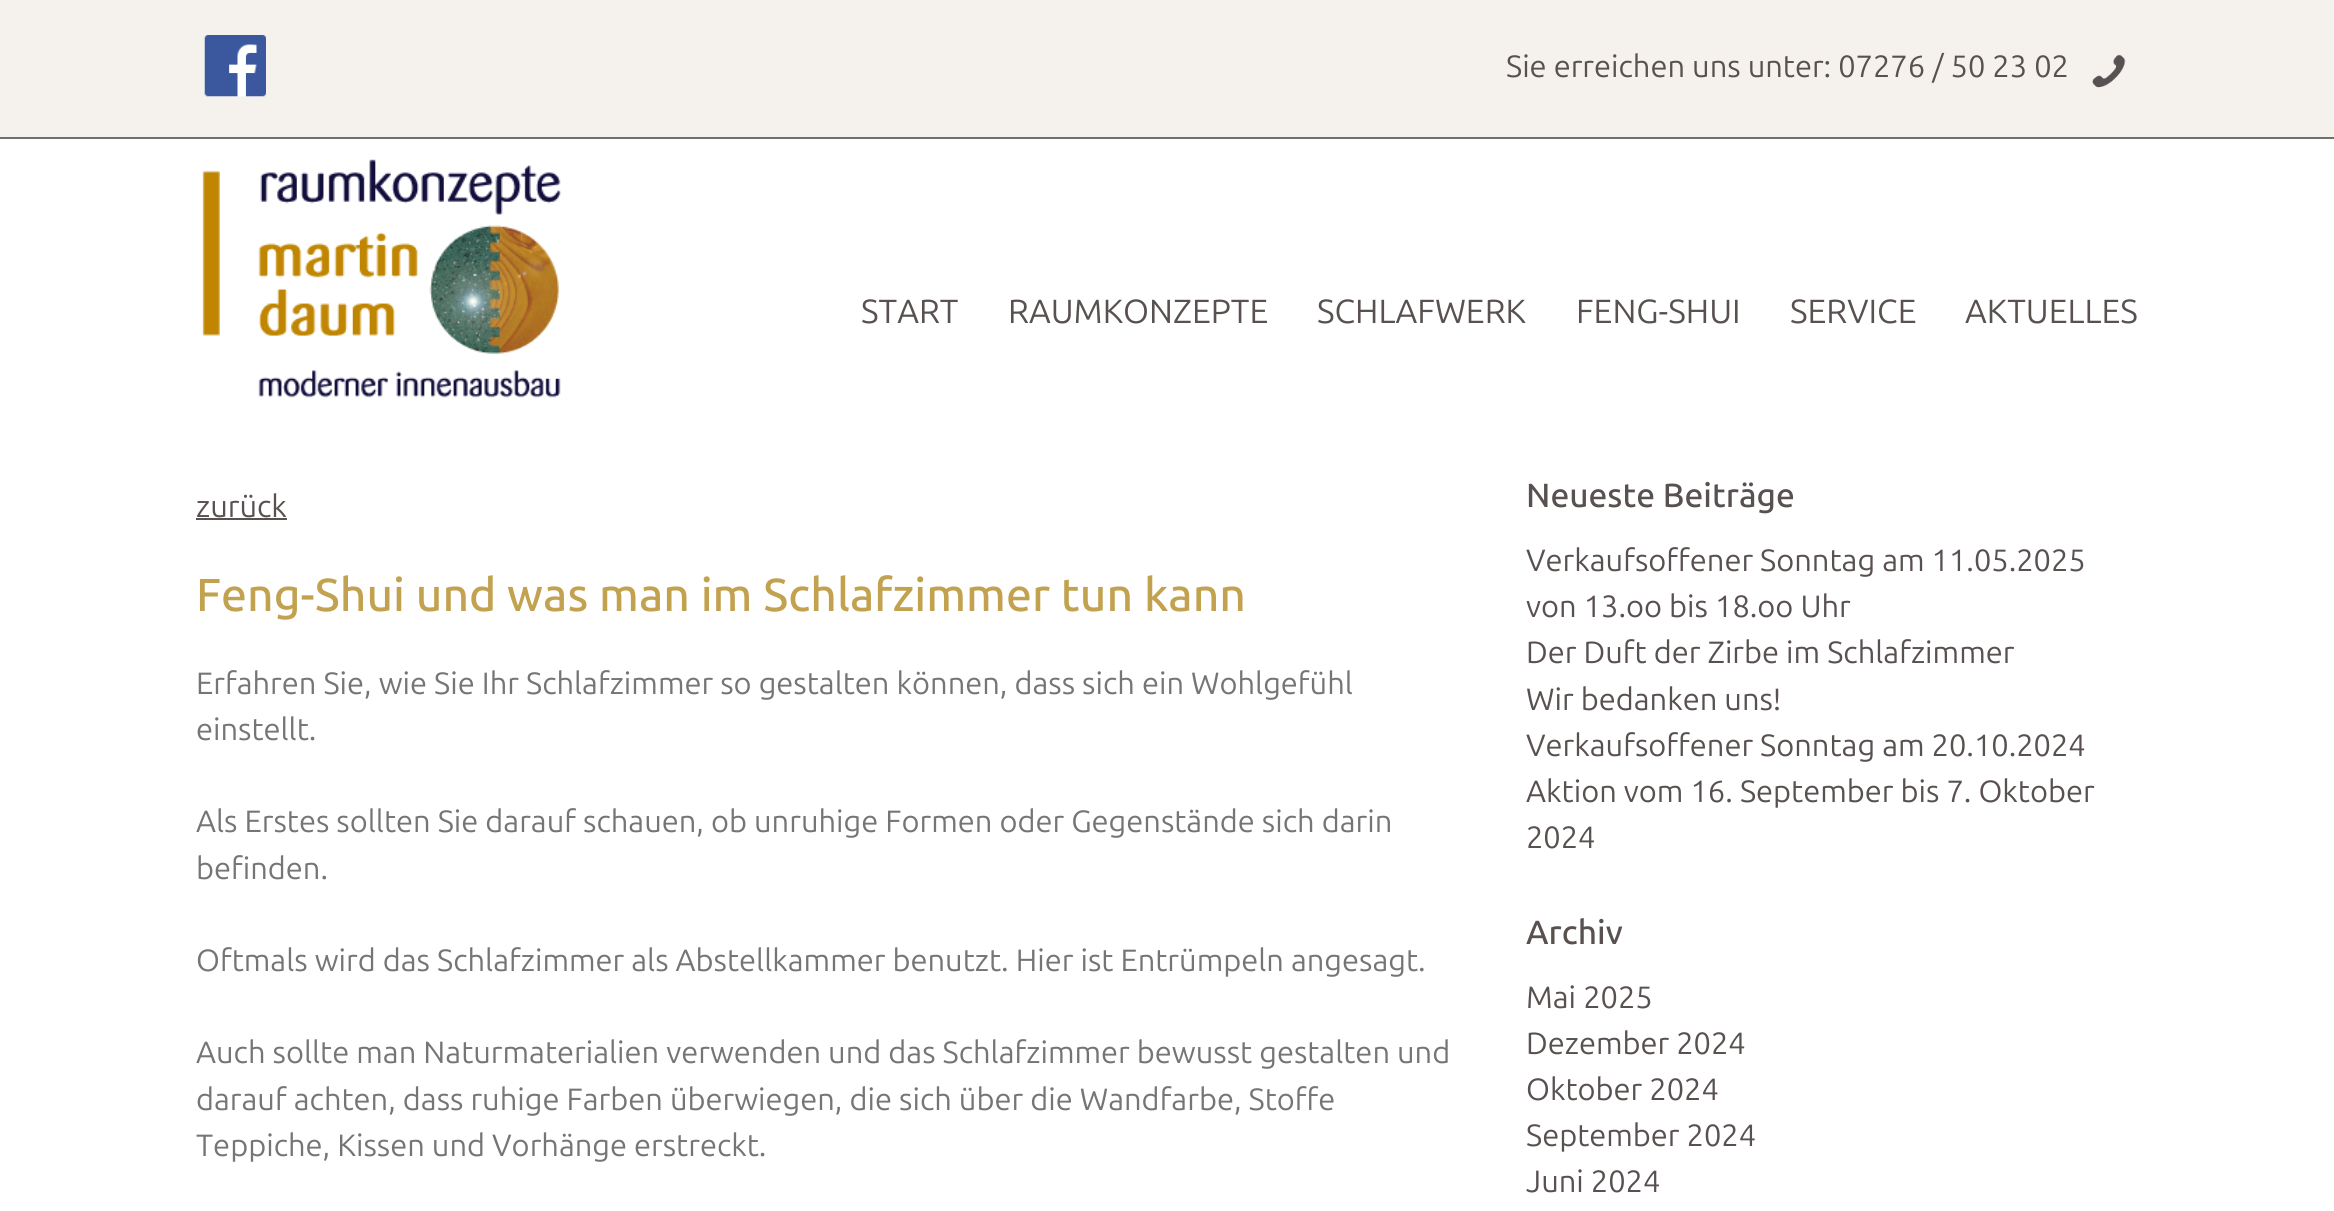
#include <cairo.h>
#include <math.h>
#include <stddef.h>


static void set_color(cairo_t *cr, unsigned color) {
    cairo_set_source_rgb(cr, (color >> 16) / 255.0, (color >> 8 & 255) / 255.0, (color & 255) / 255.0);
}

static void draw_text(cairo_t *cr, double x, double y, const char *s, const char *family, double size, int italic, int bold, unsigned color) {
    cairo_select_font_face(cr, family, italic ? CAIRO_FONT_SLANT_ITALIC : CAIRO_FONT_SLANT_NORMAL,
        bold ? CAIRO_FONT_WEIGHT_BOLD : CAIRO_FONT_WEIGHT_NORMAL);
    cairo_set_font_size(cr, size);
    set_color(cr, color);
    cairo_move_to(cr, x, y);
    cairo_show_text(cr, s);
}

static void fill_rect(cairo_t *cr, double x, double y, double w, double h, unsigned color) {
    set_color(cr, color);
    cairo_rectangle(cr, x, y, w, h);
    cairo_fill(cr);
}

static void draw_image(cairo_t *cr, const char *path, double x, double y, double w, double h) {
    cairo_surface_t *image = cairo_image_surface_create_from_png(path);
    cairo_save(cr);
    cairo_set_source_surface(cr, image, x, y);
    cairo_rectangle(cr, x, y, w, h);
    cairo_fill(cr);
    cairo_restore(cr);
    cairo_surface_destroy(image);
}

int main(void) {
    cairo_surface_t *surface = cairo_image_surface_create(CAIRO_FORMAT_RGB24, 2334, 1211);
    cairo_t *cr = cairo_create(surface);
    cairo_font_options_t *options = cairo_font_options_create();
    cairo_font_options_set_hint_metrics(options, CAIRO_HINT_METRICS_OFF);
    cairo_font_options_set_hint_style(options, CAIRO_HINT_STYLE_NONE);
    cairo_set_font_options(cr, options);
    cairo_set_miter_limit(cr, 4);
    set_color(cr, 0xFFFFFF);
    cairo_paint(cr);
    fill_rect(cr, 0, 0, 2334, 137, 0xF5F2ED);
    fill_rect(cr, 0, 137, 2334, 2, 0x707070);
    draw_image(cr, "assets/img1.png", 204, 35, 62, 62);
    draw_text(cr, 1506, 77, "Sie erreichen uns unter: 07276 / 50 23 02", "Ubuntu", 30.8, 0, 0, 0x595050);
    draw_image(cr, "assets/img2.png", 2092, 54, 34, 34);
    draw_image(cr, "assets/img3.png", 202, 159, 359, 239);
    draw_text(cr, 861, 323, "START", "Ubuntu", 33.5, 0, 0, 0x595050);
    draw_text(cr, 1008, 323, "RAUMKONZEPTE", "Ubuntu", 33.5, 0, 0, 0x595050);
    draw_text(cr, 1317, 323, "SCHLAFWERK", "Ubuntu", 33.5, 0, 0, 0x595050);
    draw_text(cr, 1576, 323, "FENG-SHUI", "Ubuntu", 33.5, 0, 0, 0x595050);
    draw_text(cr, 1790, 323, "SERVICE", "Ubuntu", 33.5, 0, 0, 0x595050);
    draw_text(cr, 1965, 323, "AKTUELLES", "Ubuntu", 33.5, 0, 0, 0x595050);
    draw_text(cr, 196, 517, "zurück", "Ubuntu", 30.8, 0, 0, 0x595050);
    fill_rect(cr, 196, 518, 91, 2, 0x595050);
    draw_text(cr, 196, 611, "Feng-Shui und was man im Schlafzimmer tun kann", "Ubuntu Medium", 46.2, 0, 0, 0xC2A14F);
    draw_text(cr, 196, 694, "Erfahren Sie, wie Sie Ihr Schlafzimmer so gestalten können, dass sich ein Wohlgefühl", "Ubuntu", 30.8, 0, 0, 0x757575);
    draw_text(cr, 196, 740, "einstellt.", "Ubuntu", 30.8, 0, 0, 0x757575);
    draw_text(cr, 196, 832, "Als Erstes sollten Sie darauf schauen, ob unruhige Formen oder Gegenstände sich darin", "Ubuntu", 30.8, 0, 0, 0x757575);
    draw_text(cr, 196, 879, "befinden.", "Ubuntu", 30.8, 0, 0, 0x757575);
    draw_text(cr, 196, 971, "Oftmals wird das Schlafzimmer als Abstellkammer benutzt. Hier ist Entrümpeln angesagt.", "Ubuntu", 30.8, 0, 0, 0x757575);
    draw_text(cr, 196, 1063, "Auch sollte man Naturmaterialien verwenden und das Schlafzimmer bewusst gestalten und", "Ubuntu", 30.8, 0, 0, 0x757575);
    draw_text(cr, 196, 1110, "darauf achten, dass ruhige Farben überwiegen, die sich über die Wandfarbe, Stoffe", "Ubuntu", 30.8, 0, 0, 0x757575);
    draw_text(cr, 196, 1156, "Teppiche, Kissen und Vorhänge erstreckt.", "Ubuntu", 30.8, 0, 0, 0x757575);
    draw_text(cr, 1526, 507, "Neueste Beiträge", "Ubuntu Medium", 33.5, 0, 0, 0x595050);
    draw_text(cr, 1526, 571, "Verkaufsoffener Sonntag am 11.05.2025", "Ubuntu", 30.8, 0, 0, 0x595050);
    draw_text(cr, 1526, 617, "von 13.oo bis 18.oo Uhr", "Ubuntu", 30.8, 0, 0, 0x595050);
    draw_text(cr, 1526, 663, "Der Duft der Zirbe im Schlafzimmer", "Ubuntu", 30.8, 0, 0, 0x595050);
    draw_text(cr, 1526, 710, "Wir bedanken uns!", "Ubuntu", 30.8, 0, 0, 0x595050);
    draw_text(cr, 1526, 756, "Verkaufsoffener Sonntag am 20.10.2024", "Ubuntu", 30.8, 0, 0, 0x595050);
    draw_text(cr, 1526, 802, "Aktion vom 16. September bis 7. Oktober", "Ubuntu", 30.8, 0, 0, 0x595050);
    draw_text(cr, 1526, 848, "2024", "Ubuntu", 30.8, 0, 0, 0x595050);
    draw_text(cr, 1526, 944, "Archiv", "Ubuntu Medium", 33.5, 0, 0, 0x595050);
    draw_text(cr, 1526, 1008, "Mai 2025", "Ubuntu", 30.8, 0, 0, 0x595050);
    draw_text(cr, 1526, 1054, "Dezember 2024", "Ubuntu", 30.8, 0, 0, 0x595050);
    draw_text(cr, 1526, 1100, "Oktober 2024", "Ubuntu", 30.8, 0, 0, 0x595050);
    draw_text(cr, 1526, 1146, "September 2024", "Ubuntu", 30.8, 0, 0, 0x595050);
    draw_text(cr, 1526, 1192, "Juni 2024", "Ubuntu", 30.8, 0, 0, 0x595050);
    cairo_surface_write_to_png(surface, "output.png");
    cairo_font_options_destroy(options);
    cairo_destroy(cr);
    cairo_surface_destroy(surface);
    return 0;
}
